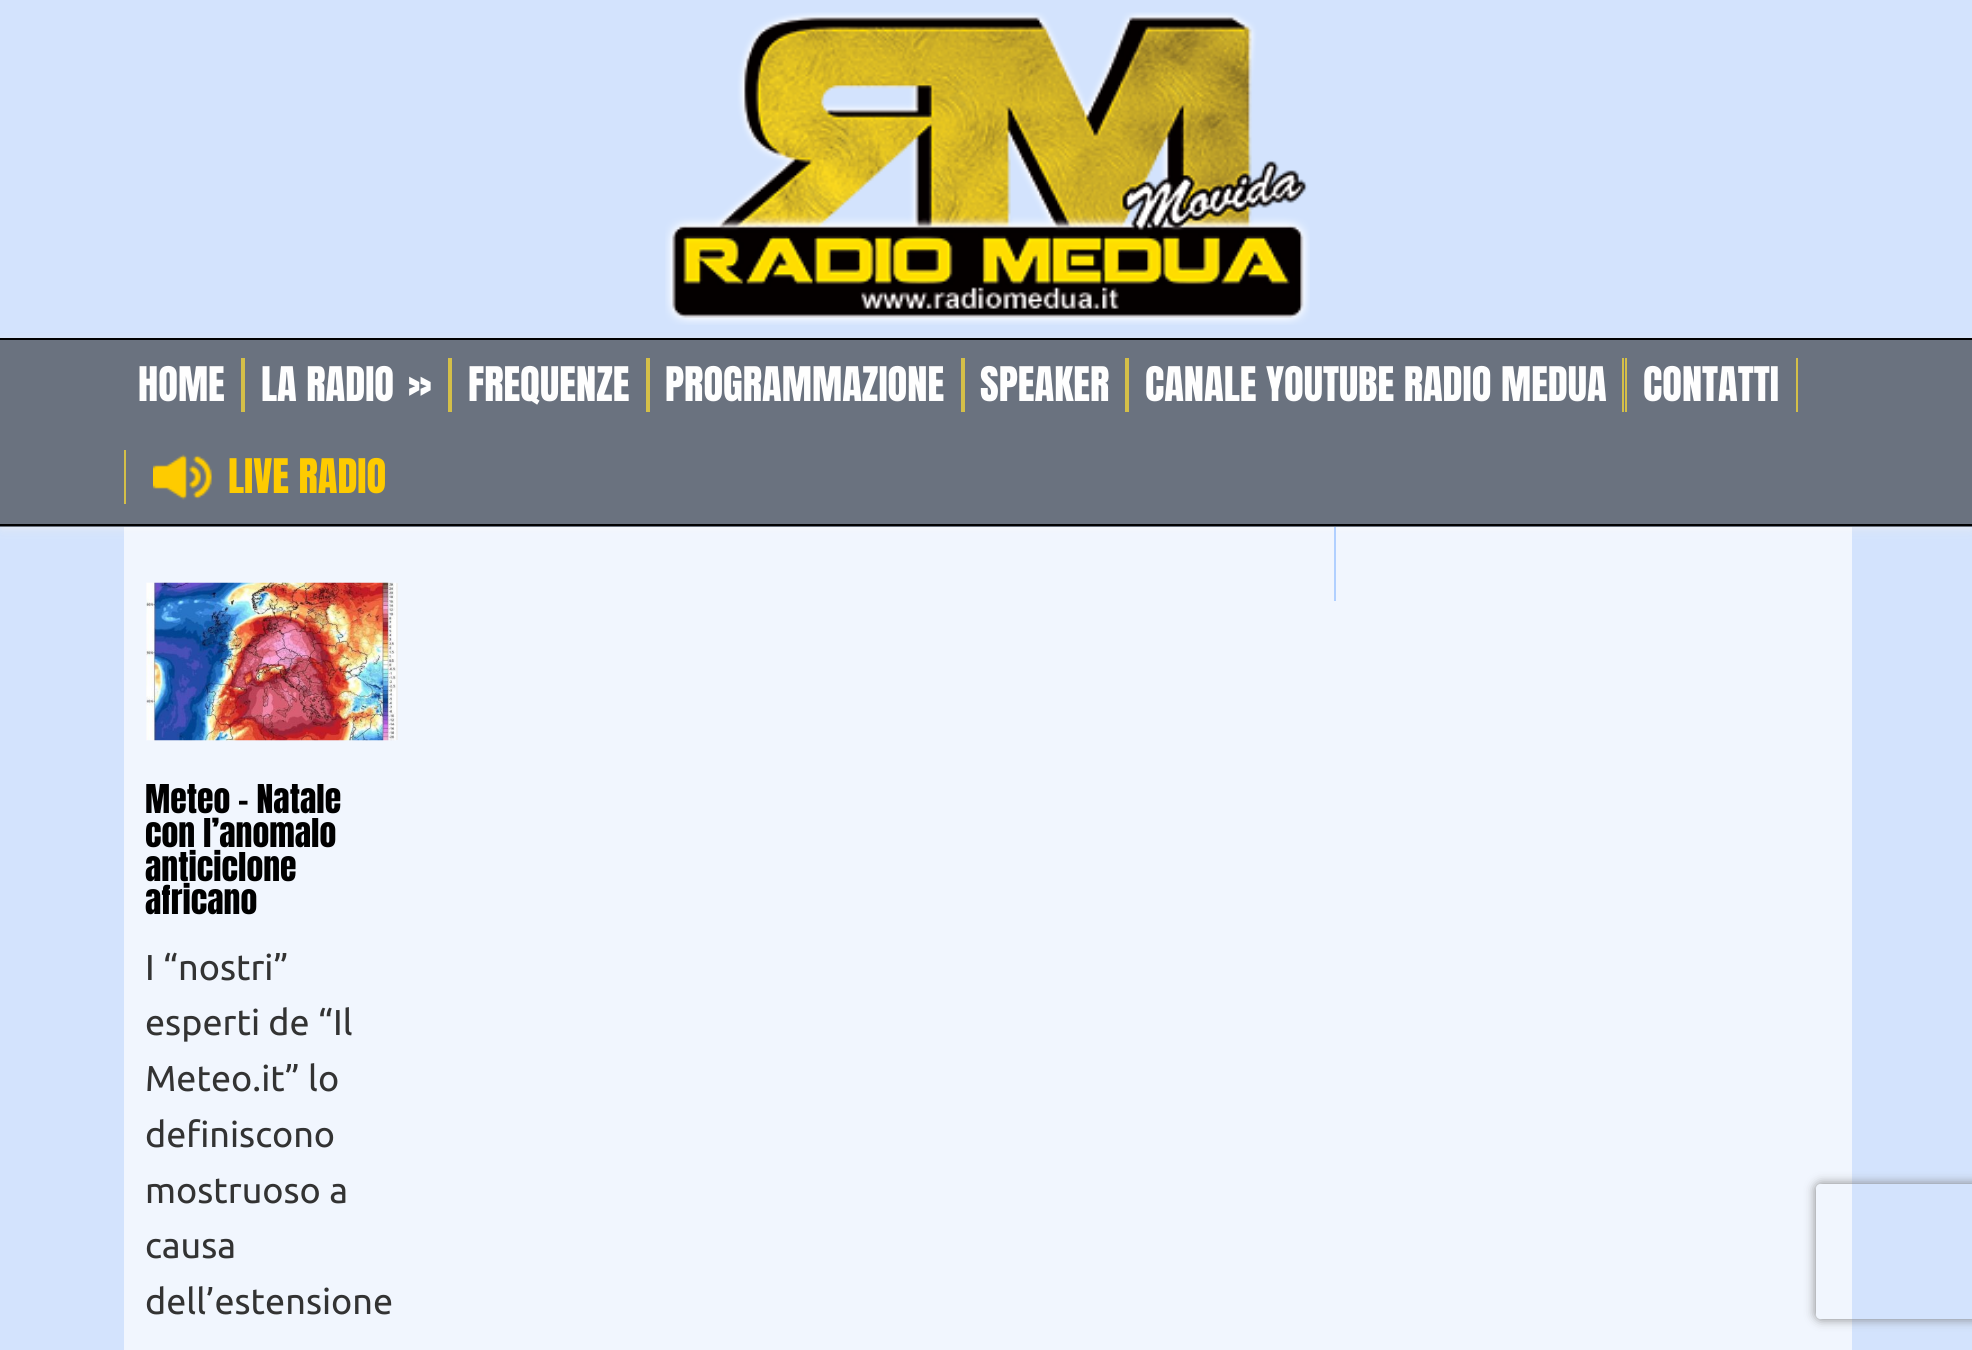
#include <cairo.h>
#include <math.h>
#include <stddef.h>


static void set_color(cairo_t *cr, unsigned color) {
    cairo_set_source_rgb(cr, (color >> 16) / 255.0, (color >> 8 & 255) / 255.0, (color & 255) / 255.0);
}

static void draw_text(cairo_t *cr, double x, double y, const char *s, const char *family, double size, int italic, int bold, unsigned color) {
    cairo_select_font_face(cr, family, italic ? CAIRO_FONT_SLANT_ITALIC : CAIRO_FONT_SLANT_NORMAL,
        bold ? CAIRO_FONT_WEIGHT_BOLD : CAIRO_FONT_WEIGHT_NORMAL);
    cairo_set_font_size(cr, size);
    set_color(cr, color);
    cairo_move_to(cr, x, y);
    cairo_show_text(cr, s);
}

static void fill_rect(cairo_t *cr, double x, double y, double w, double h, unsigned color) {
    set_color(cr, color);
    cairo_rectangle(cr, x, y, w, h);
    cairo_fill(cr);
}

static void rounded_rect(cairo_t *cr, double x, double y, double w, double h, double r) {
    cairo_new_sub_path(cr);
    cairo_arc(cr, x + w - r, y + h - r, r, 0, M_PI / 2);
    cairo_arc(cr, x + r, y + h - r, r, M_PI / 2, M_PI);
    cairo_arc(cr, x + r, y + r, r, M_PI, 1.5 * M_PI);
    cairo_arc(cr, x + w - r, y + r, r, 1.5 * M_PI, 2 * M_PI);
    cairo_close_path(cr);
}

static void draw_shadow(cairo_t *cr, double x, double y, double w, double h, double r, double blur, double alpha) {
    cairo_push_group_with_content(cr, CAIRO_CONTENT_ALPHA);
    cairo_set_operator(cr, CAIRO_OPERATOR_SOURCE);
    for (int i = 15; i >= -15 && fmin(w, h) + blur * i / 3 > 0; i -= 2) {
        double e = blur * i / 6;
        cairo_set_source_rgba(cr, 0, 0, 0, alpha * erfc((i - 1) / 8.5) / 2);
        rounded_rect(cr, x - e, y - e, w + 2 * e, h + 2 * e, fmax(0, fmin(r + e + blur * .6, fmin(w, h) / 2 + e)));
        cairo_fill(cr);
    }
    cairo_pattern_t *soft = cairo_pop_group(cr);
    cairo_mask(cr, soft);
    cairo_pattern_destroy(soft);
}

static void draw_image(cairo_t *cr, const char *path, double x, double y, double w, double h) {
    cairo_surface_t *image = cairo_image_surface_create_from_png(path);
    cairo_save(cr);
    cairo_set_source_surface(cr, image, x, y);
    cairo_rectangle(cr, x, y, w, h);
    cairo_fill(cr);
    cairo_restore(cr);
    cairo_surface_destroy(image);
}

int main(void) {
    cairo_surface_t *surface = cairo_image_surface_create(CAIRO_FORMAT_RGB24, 1972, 1350);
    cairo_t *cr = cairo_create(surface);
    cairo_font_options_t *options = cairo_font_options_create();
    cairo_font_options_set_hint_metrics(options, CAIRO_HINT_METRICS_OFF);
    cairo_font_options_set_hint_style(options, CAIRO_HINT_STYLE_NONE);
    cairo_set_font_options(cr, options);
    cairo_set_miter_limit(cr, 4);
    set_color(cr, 0xD3E3FD);
    cairo_paint(cr);
    cairo_save(cr);
    cairo_set_fill_rule(cr, CAIRO_FILL_RULE_EVEN_ODD);
    cairo_new_path(cr);
    cairo_move_to(cr, 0, 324);
    cairo_line_to(cr, 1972, 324);
    cairo_line_to(cr, 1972, 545);
    cairo_line_to(cr, 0, 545);
    cairo_close_path(cr);
    cairo_move_to(cr, 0, 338);
    cairo_line_to(cr, 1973, 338);
    cairo_line_to(cr, 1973, 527);
    cairo_line_to(cr, 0, 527);
    cairo_close_path(cr);
    cairo_clip(cr);
    set_color(cr, 0xEEEEEE);
    draw_shadow(cr, 2, 342, 1969, 185, 0, 5.5, 1);
    cairo_restore(cr);
    draw_image(cr, "assets/img1.png", 665, 12, 645, 313);
    cairo_set_source_rgba(cr, 0.008, 0.008, 0.008, 0.5);
    cairo_rectangle(cr, 0, 340, 1972, 187);
    cairo_fill(cr);
    fill_rect(cr, 0, 338, 1972, 2, 0x020202);
    fill_rect(cr, 0, 524, 1972, 2, 0x020202);
    fill_rect(cr, 241, 358, 4, 54, 0xD4BF48);
    draw_text(cr, 138, 401, "HOME", "Anton", 40.5, 0, 0, 0xFEFEFE);
    fill_rect(cr, 448, 358, 4, 54, 0xD4BF48);
    draw_text(cr, 261, 401, "LA RADIO", "Anton", 40.5, 0, 0, 0xFEFEFE);
    draw_text(cr, 408, 401, "»", "Anton", 40.5, 0, 0, 0xFEFEFE);
    fill_rect(cr, 646, 358, 4, 54, 0xD4BF48);
    draw_text(cr, 468, 401, "FREQUENZE", "Anton", 40.5, 0, 0, 0xFEFEFE);
    fill_rect(cr, 961, 358, 4, 54, 0xD4BF48);
    draw_text(cr, 665, 401, "PROGRAMMAZIONE", "Anton", 40.5, 0, 0, 0xFEFEFE);
    fill_rect(cr, 1125, 358, 4, 54, 0xD4BF48);
    draw_text(cr, 980, 401, "SPEAKER", "Anton", 40.5, 0, 0, 0xFEFEFE);
    fill_rect(cr, 1622, 358, 2, 54, 0xD4BF48);
    draw_text(cr, 1145, 401, "CANALE YOUTUBE RADIO MEDUA", "Anton", 40.5, 0, 0, 0xFEFEFE);
    fill_rect(cr, 1796, 358, 2, 54, 0xD4BF48);
    fill_rect(cr, 1625, 358, 2, 54, 0xD4BF48);
    draw_text(cr, 1643, 401, "CONTATTI", "Anton", 40.5, 0, 0, 0xFEFEFE);
    draw_image(cr, "assets/img2.png", 153, 454, 59, 46);
    fill_rect(cr, 124, 450, 2, 54, 0xD4BF48);
    draw_text(cr, 228, 493, "LIVE RADIO", "Anton", 40.5, 0, 0, 0xFECB00);
    cairo_set_source_rgba(cr, 1, 1, 1, 0.67);
    cairo_rectangle(cr, 124, 527, 1728, 823);
    cairo_fill(cr);
    fill_rect(cr, 1334, 527, 2, 74, 0xB1D0FF);
    fill_rect(cr, 146, 583, 252, 157, 0xF0F0F0);
    draw_image(cr, "assets/img3.png", 146, 582, 250, 159);
    draw_text(cr, 145, 813, "Meteo – Natale", "Anton", 33.75, 0, 0, 0x000000);
    draw_text(cr, 145, 847, "con l’anomalo", "Anton", 33.75, 0, 0, 0x000000);
    draw_text(cr, 145, 881, "anticiclone", "Anton", 33.75, 0, 0, 0x000000);
    draw_text(cr, 145, 914, "africano", "Anton", 33.75, 0, 0, 0x000000);
    draw_text(cr, 145, 980, "I “nostri”", "Ubuntu", 36, 0, 0, 0x333333);
    draw_text(cr, 145, 1035, "esperti de “Il", "Ubuntu", 36, 0, 0, 0x333333);
    draw_text(cr, 145, 1091, "Meteo.it” lo", "Ubuntu", 36, 0, 0, 0x333333);
    draw_text(cr, 145, 1147, "definiscono", "Ubuntu", 36, 0, 0, 0x333333);
    draw_text(cr, 145, 1203, "mostruoso a", "Ubuntu", 36, 0, 0, 0x333333);
    draw_text(cr, 145, 1258, "causa", "Ubuntu", 36, 0, 0, 0x333333);
    draw_text(cr, 145, 1314, "dell’estensione", "Ubuntu", 36, 0, 0, 0x333333);
    cairo_save(cr);
    cairo_set_fill_rule(cr, CAIRO_FILL_RULE_EVEN_ODD);
    cairo_new_path(cr);
    cairo_move_to(cr, 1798, 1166);
    cairo_line_to(cr, 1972, 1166);
    cairo_line_to(cr, 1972, 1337);
    cairo_line_to(cr, 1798, 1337);
    cairo_close_path(cr);
    cairo_move_to(cr, 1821, 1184);
    cairo_line_to(cr, 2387, 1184);
    cairo_curve_to(cr, 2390, 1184, 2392, 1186, 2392, 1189);
    cairo_line_to(cr, 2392, 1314);
    cairo_curve_to(cr, 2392, 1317, 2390, 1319, 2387, 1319);
    cairo_line_to(cr, 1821, 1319);
    cairo_curve_to(cr, 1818, 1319, 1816, 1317, 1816, 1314);
    cairo_line_to(cr, 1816, 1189);
    cairo_curve_to(cr, 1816, 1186, 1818, 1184, 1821, 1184);
    cairo_close_path(cr);
    cairo_clip(cr);
    set_color(cr, 0x808080);
    draw_shadow(cr, 1816, 1184, 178, 135, 5, 5.5, 1);
    cairo_restore(cr);
    cairo_surface_write_to_png(surface, "output.png");
    cairo_font_options_destroy(options);
    cairo_destroy(cr);
    cairo_surface_destroy(surface);
    return 0;
}
